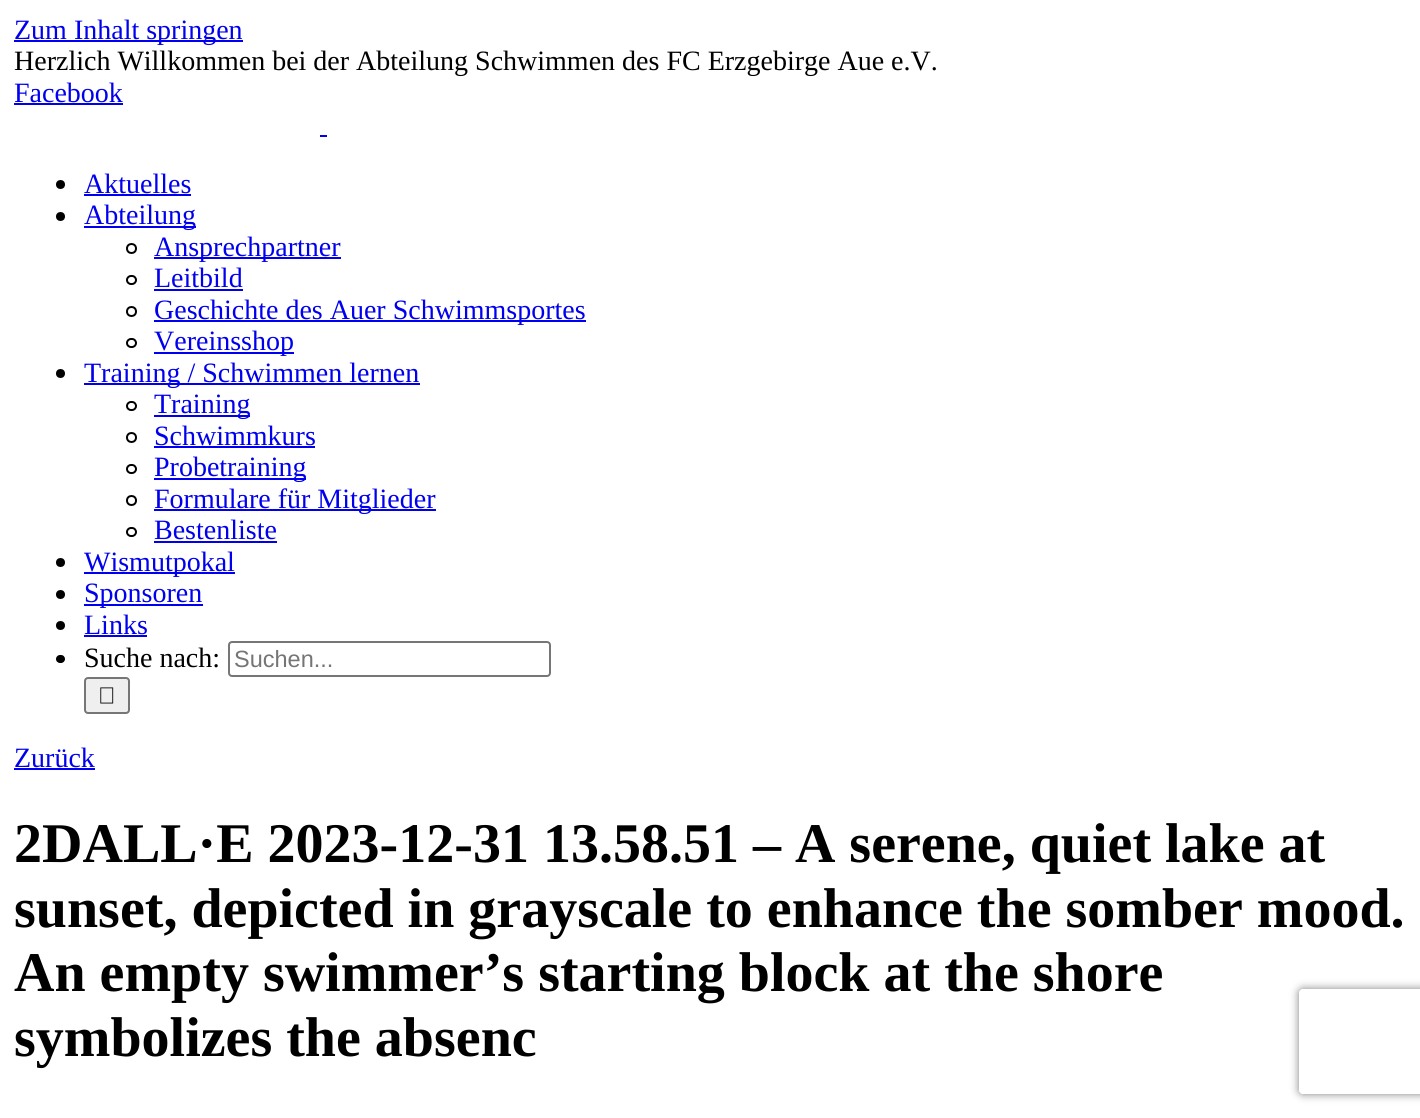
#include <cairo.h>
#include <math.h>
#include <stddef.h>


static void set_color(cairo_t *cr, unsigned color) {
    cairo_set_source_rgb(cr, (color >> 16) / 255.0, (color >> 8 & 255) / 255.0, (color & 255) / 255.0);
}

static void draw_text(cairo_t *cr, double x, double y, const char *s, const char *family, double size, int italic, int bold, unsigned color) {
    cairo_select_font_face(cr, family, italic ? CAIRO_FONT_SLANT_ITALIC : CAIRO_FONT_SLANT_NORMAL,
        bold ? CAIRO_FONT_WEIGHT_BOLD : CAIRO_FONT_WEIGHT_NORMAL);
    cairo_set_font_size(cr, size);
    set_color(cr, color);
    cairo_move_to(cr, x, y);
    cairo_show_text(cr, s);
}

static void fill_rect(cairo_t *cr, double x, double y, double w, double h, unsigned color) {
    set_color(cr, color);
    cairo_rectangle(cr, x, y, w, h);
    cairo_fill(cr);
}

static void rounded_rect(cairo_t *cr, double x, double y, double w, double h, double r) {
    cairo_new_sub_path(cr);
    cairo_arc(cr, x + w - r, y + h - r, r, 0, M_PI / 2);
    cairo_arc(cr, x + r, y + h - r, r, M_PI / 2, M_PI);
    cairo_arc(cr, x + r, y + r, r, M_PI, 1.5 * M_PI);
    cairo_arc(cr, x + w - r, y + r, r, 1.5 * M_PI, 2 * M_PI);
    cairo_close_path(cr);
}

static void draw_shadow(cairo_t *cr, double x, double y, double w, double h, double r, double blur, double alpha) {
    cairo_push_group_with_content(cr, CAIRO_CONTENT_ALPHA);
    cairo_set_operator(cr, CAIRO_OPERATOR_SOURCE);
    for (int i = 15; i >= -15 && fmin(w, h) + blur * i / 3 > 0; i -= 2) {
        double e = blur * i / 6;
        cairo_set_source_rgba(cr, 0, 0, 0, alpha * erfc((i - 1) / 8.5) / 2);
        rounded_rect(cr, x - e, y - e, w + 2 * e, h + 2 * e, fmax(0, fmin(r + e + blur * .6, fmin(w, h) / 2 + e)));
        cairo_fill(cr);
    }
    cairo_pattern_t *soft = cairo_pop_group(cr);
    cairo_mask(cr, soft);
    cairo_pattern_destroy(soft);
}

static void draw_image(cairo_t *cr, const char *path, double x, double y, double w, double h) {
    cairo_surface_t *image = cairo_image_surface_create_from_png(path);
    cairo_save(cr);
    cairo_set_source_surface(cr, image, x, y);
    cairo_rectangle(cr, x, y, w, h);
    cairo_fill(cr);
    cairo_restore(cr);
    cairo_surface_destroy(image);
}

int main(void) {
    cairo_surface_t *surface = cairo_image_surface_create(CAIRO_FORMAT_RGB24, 1420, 1118);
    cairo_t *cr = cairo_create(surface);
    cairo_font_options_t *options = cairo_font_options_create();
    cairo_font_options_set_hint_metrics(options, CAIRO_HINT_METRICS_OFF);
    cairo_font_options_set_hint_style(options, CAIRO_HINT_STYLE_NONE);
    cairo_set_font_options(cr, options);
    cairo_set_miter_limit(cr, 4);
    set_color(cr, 0xFFFFFF);
    cairo_paint(cr);
    fill_rect(cr, 14, 40, 229, 2, 0x0000EE);
    draw_text(cr, 14, 39, "Zum Inhalt springen", "Liberation Serif", 28, 0, 0, 0x0000EE);
    draw_text(cr, 14, 70, "Herzlich Willkommen bei der Abteilung Schwimmen des FC Erzgebirge Aue e.V.", "Liberation Serif", 28, 0, 0, 0x000000);
    draw_text(cr, 14, 102, "Facebook", "Liberation Serif", 28, 0, 0, 0x0000EE);
    fill_rect(cr, 14, 103, 109, 2, 0x0000EE);
    fill_rect(cr, 320, 135, 7, 2, 0x0000EE);
    set_color(cr, 0x000000);
    cairo_new_path(cr);
    cairo_arc(cr, 60.5, 184.5, 4.5, 0, 2 * M_PI);
    cairo_fill(cr);
    draw_text(cr, 84, 193, "Aktuelles", "Liberation Serif", 28, 0, 0, 0x0000EE);
    fill_rect(cr, 84, 194, 107, 2, 0x0000EE);
    set_color(cr, 0x000000);
    cairo_new_path(cr);
    cairo_arc(cr, 60.5, 216.5, 4.5, 0, 2 * M_PI);
    cairo_fill(cr);
    fill_rect(cr, 84, 226, 112, 2, 0x0000EE);
    draw_text(cr, 84, 224, "Abteilung", "Liberation Serif", 28, 0, 0, 0x0000EE);
    cairo_new_path(cr);
    cairo_arc(cr, 131.5, 248.5, 4.5, 0, 2 * M_PI);
    set_color(cr, 0x000000);
    cairo_stroke(cr);
    fill_rect(cr, 154, 257, 187, 2, 0x0000EE);
    draw_text(cr, 154, 256, "Ansprechpartner", "Liberation Serif", 28, 0, 0, 0x0000EE);
    rounded_rect(cr, 127, 276, 9, 8, 4);
    set_color(cr, 0x000000);
    cairo_stroke(cr);
    draw_text(cr, 154, 287, "Leitbild", "Liberation Serif", 28, 0, 0, 0x0000EE);
    fill_rect(cr, 154, 289, 89, 2, 0x0000EE);
    cairo_new_path(cr);
    cairo_arc(cr, 131.5, 311.5, 4.5, 0, 2 * M_PI);
    set_color(cr, 0x000000);
    cairo_stroke(cr);
    fill_rect(cr, 154, 320, 432, 2, 0x0000EE);
    draw_text(cr, 154, 319, "Geschichte des Auer Schwimmsportes", "Liberation Serif", 28, 0, 0, 0x0000EE);
    rounded_rect(cr, 127, 339, 9, 8, 4);
    set_color(cr, 0x000000);
    cairo_stroke(cr);
    fill_rect(cr, 154, 352, 140, 2, 0x0000EE);
    draw_text(cr, 154, 350, "Vereinsshop", "Liberation Serif", 28, 0, 0, 0x0000EE);
    set_color(cr, 0x000000);
    cairo_new_path(cr);
    cairo_arc(cr, 60.5, 373.5, 4.5, 0, 2 * M_PI);
    cairo_fill(cr);
    fill_rect(cr, 84, 383, 336, 2, 0x0000EE);
    draw_text(cr, 84, 382, "Training / Schwimmen lernen", "Liberation Serif", 28, 0, 0, 0x0000EE);
    rounded_rect(cr, 127, 402, 9, 8, 4);
    set_color(cr, 0x000000);
    cairo_stroke(cr);
    fill_rect(cr, 154, 415, 96, 2, 0x0000EE);
    draw_text(cr, 154, 413, "Training", "Liberation Serif", 28, 0, 0, 0x0000EE);
    cairo_new_path(cr);
    cairo_arc(cr, 131.5, 437.5, 4.5, 0, 2 * M_PI);
    set_color(cr, 0x000000);
    cairo_stroke(cr);
    draw_text(cr, 154, 445, "Schwimmkurs", "Liberation Serif", 28, 0, 0, 0x0000EE);
    fill_rect(cr, 154, 446, 161, 2, 0x0000EE);
    rounded_rect(cr, 127, 465, 9, 8, 4);
    set_color(cr, 0x000000);
    cairo_stroke(cr);
    fill_rect(cr, 154, 478, 152, 2, 0x0000EE);
    draw_text(cr, 154, 476, "Probetraining", "Liberation Serif", 28, 0, 0, 0x0000EE);
    cairo_new_path(cr);
    cairo_arc(cr, 131.5, 500.5, 4.5, 0, 2 * M_PI);
    set_color(cr, 0x000000);
    cairo_stroke(cr);
    fill_rect(cr, 154, 509, 282, 2, 0x0000EE);
    draw_text(cr, 154, 508, "Formulare für Mitglieder", "Liberation Serif", 28, 0, 0, 0x0000EE);
    rounded_rect(cr, 127, 528, 9, 8, 4);
    set_color(cr, 0x000000);
    cairo_stroke(cr);
    draw_text(cr, 154, 539, "Bestenliste", "Liberation Serif", 28, 0, 0, 0x0000EE);
    fill_rect(cr, 154, 541, 123, 2, 0x0000EE);
    set_color(cr, 0x000000);
    cairo_new_path(cr);
    cairo_arc(cr, 60.5, 562.5, 4.5, 0, 2 * M_PI);
    cairo_fill(cr);
    fill_rect(cr, 84, 572, 151, 2, 0x0000EE);
    draw_text(cr, 84, 571, "Wismutpokal", "Liberation Serif", 28, 0, 0, 0x0000EE);
    set_color(cr, 0x000000);
    cairo_new_path(cr);
    cairo_arc(cr, 60.5, 594.5, 4.5, 0, 2 * M_PI);
    cairo_fill(cr);
    fill_rect(cr, 84, 604, 119, 2, 0x0000EE);
    draw_text(cr, 84, 602, "Sponsoren", "Liberation Serif", 28, 0, 0, 0x0000EE);
    set_color(cr, 0x000000);
    cairo_new_path(cr);
    cairo_arc(cr, 60.5, 625.5, 4.5, 0, 2 * M_PI);
    cairo_fill(cr);
    draw_text(cr, 84, 634, "Links", "Liberation Serif", 28, 0, 0, 0x0000EE);
    fill_rect(cr, 84, 635, 63, 2, 0x0000EE);
    set_color(cr, 0x000000);
    rounded_rect(cr, 56, 655, 9, 8, 4);
    cairo_fill(cr);
    draw_text(cr, 84, 667, "Suche nach:", "Liberation Serif", 28, 0, 0, 0x000000);
    rounded_rect(cr, 229, 642, 321, 34, 3);
    set_color(cr, 0x767676);
    cairo_stroke(cr);
    draw_text(cr, 234, 667, "Suchen...", "Liberation Sans", 23.5, 0, 0, 0x757575);
    set_color(cr, 0xEFEFEF);
    rounded_rect(cr, 85, 678, 44, 35, 3);
    cairo_fill_preserve(cr);
    set_color(cr, 0x767676);
    cairo_stroke(cr);
    draw_image(cr, "assets/img1.png", 100, 687, 14, 17);
    draw_text(cr, 14, 767, "Zurück", "Liberation Serif", 28, 0, 0, 0x0000EE);
    fill_rect(cr, 14, 768, 81, 2, 0x0000EE);
    draw_text(cr, 14, 862, "2DALL·E 2023-12-31 13.58.51 – A serene, quiet lake at", "Liberation Serif", 56, 0, 1, 0x000000);
    draw_text(cr, 14, 927, "sunset, depicted in grayscale to enhance the somber mood.", "Liberation Serif", 56, 0, 1, 0x000000);
    draw_text(cr, 14, 991, "An empty swimmer’s starting block at the shore", "Liberation Serif", 56, 0, 1, 0x000000);
    draw_text(cr, 14, 1056, "symbolizes the absenc", "Liberation Serif", 56, 0, 1, 0x000000);
    cairo_save(cr);
    cairo_set_fill_rule(cr, CAIRO_FILL_RULE_EVEN_ODD);
    cairo_new_path(cr);
    cairo_move_to(cr, 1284, 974);
    cairo_line_to(cr, 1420, 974);
    cairo_line_to(cr, 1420, 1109);
    cairo_line_to(cr, 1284, 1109);
    cairo_close_path(cr);
    cairo_move_to(cr, 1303, 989);
    cairo_line_to(cr, 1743, 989);
    cairo_curve_to(cr, 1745, 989, 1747, 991, 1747, 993);
    cairo_line_to(cr, 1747, 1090);
    cairo_curve_to(cr, 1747, 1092, 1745, 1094, 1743, 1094);
    cairo_line_to(cr, 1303, 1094);
    cairo_curve_to(cr, 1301, 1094, 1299, 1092, 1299, 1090);
    cairo_line_to(cr, 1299, 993);
    cairo_curve_to(cr, 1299, 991, 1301, 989, 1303, 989);
    cairo_close_path(cr);
    cairo_clip(cr);
    set_color(cr, 0x808080);
    draw_shadow(cr, 1299, 989, 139, 105, 4, 4.5, 1);
    cairo_restore(cr);
    cairo_surface_write_to_png(surface, "output.png");
    cairo_font_options_destroy(options);
    cairo_destroy(cr);
    cairo_surface_destroy(surface);
    return 0;
}
